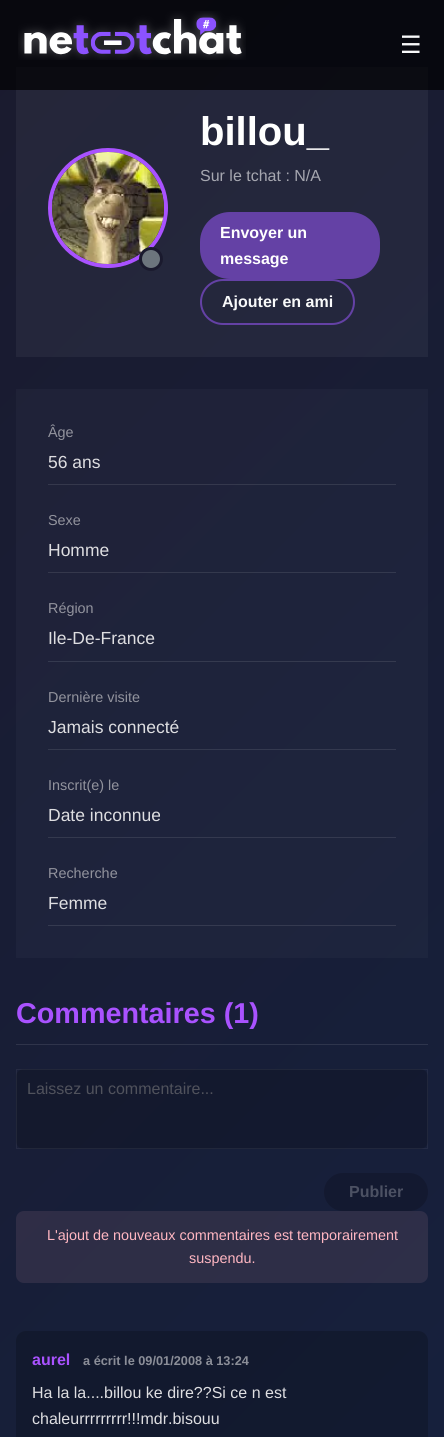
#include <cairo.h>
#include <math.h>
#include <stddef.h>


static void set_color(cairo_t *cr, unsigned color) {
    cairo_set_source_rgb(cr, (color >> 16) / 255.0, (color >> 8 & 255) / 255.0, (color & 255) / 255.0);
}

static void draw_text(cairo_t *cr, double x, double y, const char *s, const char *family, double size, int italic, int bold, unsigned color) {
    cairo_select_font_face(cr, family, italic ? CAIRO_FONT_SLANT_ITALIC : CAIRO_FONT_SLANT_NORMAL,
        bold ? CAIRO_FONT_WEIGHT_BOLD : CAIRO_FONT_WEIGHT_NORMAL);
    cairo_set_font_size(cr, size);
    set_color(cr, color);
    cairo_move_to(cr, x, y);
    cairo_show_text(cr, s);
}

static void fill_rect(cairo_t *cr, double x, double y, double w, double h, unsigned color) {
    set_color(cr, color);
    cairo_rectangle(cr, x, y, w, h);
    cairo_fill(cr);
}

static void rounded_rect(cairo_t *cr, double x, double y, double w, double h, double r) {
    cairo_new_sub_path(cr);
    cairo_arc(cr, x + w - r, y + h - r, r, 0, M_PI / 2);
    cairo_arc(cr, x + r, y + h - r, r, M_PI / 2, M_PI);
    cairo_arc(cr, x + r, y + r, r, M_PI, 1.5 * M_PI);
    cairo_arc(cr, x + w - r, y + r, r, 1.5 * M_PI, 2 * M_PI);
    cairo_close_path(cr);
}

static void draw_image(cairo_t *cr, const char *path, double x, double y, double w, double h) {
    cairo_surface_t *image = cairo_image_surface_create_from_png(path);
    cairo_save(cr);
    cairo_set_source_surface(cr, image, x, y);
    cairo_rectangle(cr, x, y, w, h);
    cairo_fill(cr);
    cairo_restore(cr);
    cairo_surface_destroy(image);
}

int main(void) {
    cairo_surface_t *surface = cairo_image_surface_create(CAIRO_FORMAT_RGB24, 444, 1437);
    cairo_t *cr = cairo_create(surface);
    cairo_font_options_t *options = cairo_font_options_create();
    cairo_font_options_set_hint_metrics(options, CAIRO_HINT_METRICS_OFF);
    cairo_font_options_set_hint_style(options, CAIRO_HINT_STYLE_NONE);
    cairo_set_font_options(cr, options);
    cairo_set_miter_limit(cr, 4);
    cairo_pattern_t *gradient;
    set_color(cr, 0xFFFFFF);
    cairo_paint(cr);
    gradient = cairo_pattern_create_linear(-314, 259, 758, 1332);
    cairo_pattern_add_color_stop_rgba(gradient, 0, 0.102, 0.102, 0.18, 1);
    cairo_pattern_add_color_stop_rgba(gradient, 1, 0.086, 0.129, 0.243, 1);
    cairo_set_source(cr, gradient);
    cairo_pattern_destroy(gradient);
    cairo_rectangle(cr, 0, 0, 444, 1437);
    cairo_fill(cr);
    gradient = cairo_pattern_create_linear(-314, 259, 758, 1332);
    cairo_pattern_add_color_stop_rgba(gradient, 0, 0.192, 0.192, 0.263, 1);
    cairo_pattern_add_color_stop_rgba(gradient, 1, 0.176, 0.216, 0.318, 1);
    cairo_set_source(cr, gradient);
    cairo_pattern_destroy(gradient);
    cairo_rectangle(cr, 16, 1044, 412, 1);
    cairo_fill(cr);
    cairo_set_source_rgba(cr, 1, 1, 1, 0.05);
    cairo_rectangle(cr, 16, 67, 412, 290);
    cairo_fill(cr);
    cairo_set_source_rgba(cr, 0, 0, 0, 0.7);
    cairo_rectangle(cr, 0, 0, 444, 90);
    cairo_fill(cr);
    draw_image(cr, "assets/img1.png", 18, 11, 228, 49);
    draw_text(cr, 400, 53, "☰", "DejaVu Sans", 24, 0, 0, 0xF8F9FA);
    cairo_new_path(cr);
    cairo_arc(cr, 108, 208, 58, 0, 2 * M_PI);
    set_color(cr, 0xA952FF);
    cairo_set_line_width(cr, 4);
    cairo_stroke(cr);
    draw_image(cr, "assets/img2.png", 52, 152, 112, 112);
    set_color(cr, 0x6C757D);
    cairo_arc(cr, 151, 259, 10.5, 0, 2 * M_PI);
    cairo_fill_preserve(cr);
    set_color(cr, 0x1A1A2E);
    cairo_set_line_width(cr, 3);
    cairo_stroke(cr);
    draw_text(cr, 200, 145, "billou_", "Liberation Sans", 40, 0, 1, 0xFFFFFF);
    draw_text(cr, 200, 181, "Sur le tchat : N/A", "Liberation Sans", 16, 0, 0, 0xA6A7B0);
    set_color(cr, 0x6441A5);
    rounded_rect(cr, 200, 212, 180, 67, 30);
    cairo_fill(cr);
    draw_text(cr, 220, 238, "Envoyer un", "Liberation Sans", 16, 0, 1, 0xFFFFFF);
    draw_text(cr, 220, 264, "message", "Liberation Sans", 16, 0, 1, 0xFFFFFF);
    rounded_rect(cr, 201, 280, 153, 44, 22);
    set_color(cr, 0x6441A5);
    cairo_set_line_width(cr, 2);
    cairo_stroke(cr);
    draw_text(cr, 222, 307, "Ajouter en ami", "Liberation Sans", 16, 0, 1, 0xF8F9FA);
    cairo_set_source_rgba(cr, 1, 1, 1, 0.03);
    cairo_rectangle(cr, 16, 389, 412, 569);
    cairo_fill(cr);
    cairo_set_source_rgba(cr, 1, 1, 1, 0.1);
    cairo_rectangle(cr, 48, 484, 348, 1);
    cairo_fill(cr);
    draw_text(cr, 48, 437, "Âge", "Liberation Sans", 14.4, 0, 0, 0x92939D);
    draw_text(cr, 48, 468, "56 ans", "Liberation Sans", 17.5, 0, 0, 0xDEDEE1);
    cairo_set_source_rgba(cr, 1, 1, 1, 0.1);
    cairo_rectangle(cr, 48, 572, 348, 1);
    cairo_fill(cr);
    draw_text(cr, 48, 525, "Sexe", "Liberation Sans", 14.4, 0, 0, 0x92939D);
    draw_text(cr, 48, 556, "Homme", "Liberation Sans", 17.5, 0, 0, 0xDEDEE1);
    fill_rect(cr, 48, 661, 348, 1, 0x353A4F);
    draw_text(cr, 48, 613, "Région", "Liberation Sans", 14.4, 0, 0, 0x92939D);
    draw_text(cr, 48, 644, "Ile-De-France", "Liberation Sans", 17.5, 0, 0, 0xDEDEE1);
    cairo_set_source_rgba(cr, 1, 1, 1, 0.1);
    cairo_rectangle(cr, 48, 749, 348, 1);
    cairo_fill(cr);
    draw_text(cr, 48, 702, "Dernière visite", "Liberation Sans", 14.4, 0, 0, 0x92939D);
    draw_text(cr, 48, 733, "Jamais connecté", "Liberation Sans", 17.5, 0, 0, 0xDEDEE1);
    cairo_set_source_rgba(cr, 1, 1, 1, 0.1);
    cairo_rectangle(cr, 48, 837, 348, 1);
    cairo_fill(cr);
    draw_text(cr, 48, 790, "Inscrit(e) le", "Liberation Sans", 14.4, 0, 0, 0x92939D);
    draw_text(cr, 48, 821, "Date inconnue", "Liberation Sans", 17.5, 0, 0, 0xDEDEE1);
    fill_rect(cr, 48, 925, 348, 1, 0x353A50);
    draw_text(cr, 48, 878, "Recherche", "Liberation Sans", 14.4, 0, 0, 0x92939D);
    draw_text(cr, 48, 909, "Femme", "Liberation Sans", 17.5, 0, 0, 0xDEDEE1);
    draw_text(cr, 16, 1023, "Commentaires (1)", "Liberation Sans", 28.75, 0, 1, 0xA952FF);
    cairo_set_source_rgba(cr, 0, 0, 0, 0.18);
    rounded_rect(cr, 16, 1069, 412, 80, 8);
    cairo_fill(cr);
    cairo_rectangle(cr, 16.5, 1069.5, 411, 79);
    cairo_set_source_rgba(cr, 1, 1, 1, 0.06);
    cairo_set_line_width(cr, 1);
    cairo_stroke(cr);
    draw_text(cr, 27, 1094, "Laissez un commentaire...", "Liberation Sans", 16, 0, 0, 0x50525C);
    set_color(cr, 0x131930);
    rounded_rect(cr, 324, 1173, 104, 38, 19);
    cairo_fill(cr);
    draw_text(cr, 349, 1197, "Publier", "Liberation Sans", 16, 0, 1, 0x4C5163);
    cairo_set_source_rgba(cr, 1, 0.714, 0.757, 0.1);
    rounded_rect(cr, 16, 1211, 412, 72, 8);
    cairo_fill(cr);
    draw_text(cr, 47, 1240, "L'ajout de nouveaux commentaires est temporairement", "Liberation Sans", 14.4, 0, 0, 0xFFB6C1);
    draw_text(cr, 189, 1263, "suspendu.", "Liberation Sans", 14.4, 0, 0, 0xFFB6C1);
    cairo_set_source_rgba(cr, 0, 0, 0, 0.2);
    rounded_rect(cr, 16, 1331, 412, 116, 10);
    cairo_fill(cr);
    draw_text(cr, 32, 1365, "aurel", "Liberation Sans", 16, 0, 1, 0xA952FF);
    draw_text(cr, 83, 1365, "a écrit le 09/01/2008 à 13:24", "Liberation Sans", 12.75, 0, 1, 0x8B8E98);
    draw_text(cr, 32, 1398, "Ha la la....billou ke dire?\077Si ce n est", "Liberation Sans", 16, 0, 0, 0xDEDEE1);
    draw_text(cr, 32, 1424, "chaleurrrrrrrrr!!!mdr.bisouu", "Liberation Sans", 16, 0, 0, 0xDEDEE1);
    cairo_surface_write_to_png(surface, "output.png");
    cairo_font_options_destroy(options);
    cairo_destroy(cr);
    cairo_surface_destroy(surface);
    return 0;
}
